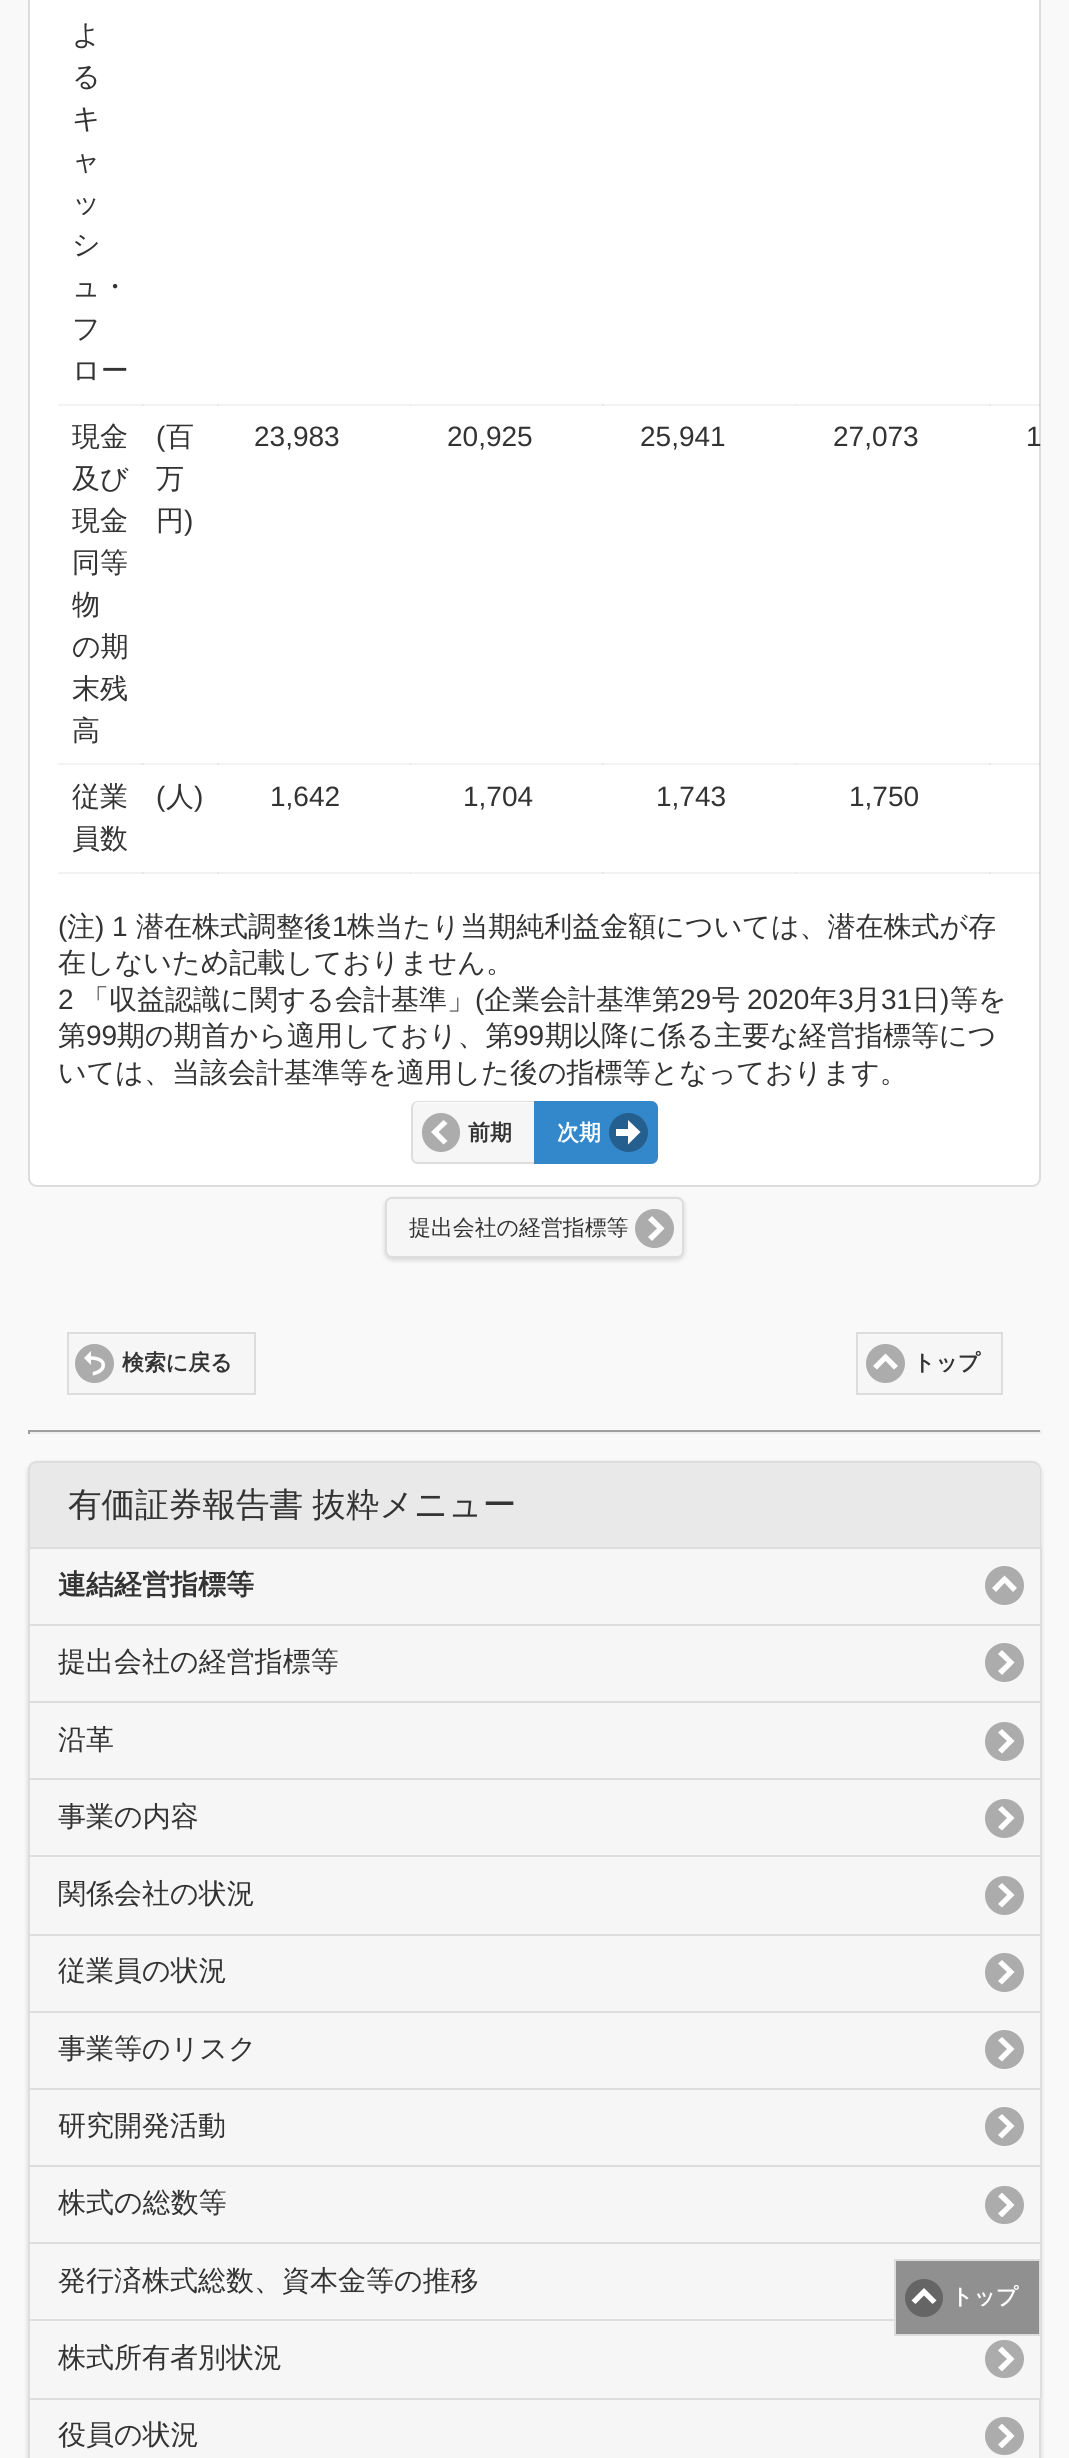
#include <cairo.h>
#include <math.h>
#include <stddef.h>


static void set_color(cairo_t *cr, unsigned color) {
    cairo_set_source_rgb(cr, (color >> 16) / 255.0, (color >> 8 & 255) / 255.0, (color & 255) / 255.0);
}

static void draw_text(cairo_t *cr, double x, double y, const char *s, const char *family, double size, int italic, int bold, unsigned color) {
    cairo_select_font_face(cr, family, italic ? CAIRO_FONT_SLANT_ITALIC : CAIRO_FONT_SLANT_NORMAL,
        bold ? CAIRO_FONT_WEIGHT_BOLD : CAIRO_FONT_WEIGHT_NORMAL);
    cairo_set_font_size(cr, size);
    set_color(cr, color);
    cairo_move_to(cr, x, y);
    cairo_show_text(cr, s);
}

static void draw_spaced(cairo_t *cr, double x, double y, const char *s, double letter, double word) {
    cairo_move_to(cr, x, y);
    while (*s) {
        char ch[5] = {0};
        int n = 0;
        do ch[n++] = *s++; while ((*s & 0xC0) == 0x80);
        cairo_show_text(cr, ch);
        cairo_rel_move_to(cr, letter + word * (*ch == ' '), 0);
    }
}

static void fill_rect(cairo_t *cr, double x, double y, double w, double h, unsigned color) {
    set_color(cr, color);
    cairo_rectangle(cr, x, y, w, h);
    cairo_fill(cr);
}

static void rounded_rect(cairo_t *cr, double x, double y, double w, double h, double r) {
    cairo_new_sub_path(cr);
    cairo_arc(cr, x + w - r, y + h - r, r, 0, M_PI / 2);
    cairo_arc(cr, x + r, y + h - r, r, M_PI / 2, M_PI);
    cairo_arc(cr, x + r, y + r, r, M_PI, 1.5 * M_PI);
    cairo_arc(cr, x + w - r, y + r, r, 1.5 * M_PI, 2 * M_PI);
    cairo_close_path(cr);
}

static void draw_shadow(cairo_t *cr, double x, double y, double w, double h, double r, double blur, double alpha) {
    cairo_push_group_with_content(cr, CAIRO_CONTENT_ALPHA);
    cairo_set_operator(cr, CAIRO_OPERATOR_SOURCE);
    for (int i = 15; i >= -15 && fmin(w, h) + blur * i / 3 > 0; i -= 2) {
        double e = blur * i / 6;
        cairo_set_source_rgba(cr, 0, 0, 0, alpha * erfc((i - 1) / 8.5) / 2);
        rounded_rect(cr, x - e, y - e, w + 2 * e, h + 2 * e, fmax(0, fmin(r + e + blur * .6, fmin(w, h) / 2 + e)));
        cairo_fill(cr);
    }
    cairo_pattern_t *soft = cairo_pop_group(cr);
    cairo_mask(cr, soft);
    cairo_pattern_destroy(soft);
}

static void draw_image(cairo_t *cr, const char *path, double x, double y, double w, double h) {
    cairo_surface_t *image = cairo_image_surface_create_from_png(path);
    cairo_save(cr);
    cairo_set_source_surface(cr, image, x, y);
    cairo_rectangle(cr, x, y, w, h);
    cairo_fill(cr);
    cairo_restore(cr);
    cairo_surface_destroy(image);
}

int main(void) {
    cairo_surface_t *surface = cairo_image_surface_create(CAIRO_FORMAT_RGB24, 1069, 2458);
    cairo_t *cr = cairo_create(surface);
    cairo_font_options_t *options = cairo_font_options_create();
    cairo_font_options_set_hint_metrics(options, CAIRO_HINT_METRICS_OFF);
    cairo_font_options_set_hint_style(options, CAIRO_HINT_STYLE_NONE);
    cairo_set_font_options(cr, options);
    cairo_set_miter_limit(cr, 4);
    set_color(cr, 0xF9F9F9);
    cairo_paint(cr);
    set_color(cr, 0xFFFFFF);
    rounded_rect(cr, 30, -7, 1010, 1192, 7);
    cairo_fill(cr);
    rounded_rect(cr, 29, -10, 1011, 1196, 8);
    set_color(cr, 0xDDDDDD);
    cairo_stroke(cr);
    cairo_set_source_rgba(cr, 0, 0, 0, 0.05);
    cairo_rectangle(cr, 989, 404, 51, 2);
    cairo_fill(cr);
    cairo_rectangle(cr, 795, 404, 196, 2);
    cairo_fill(cr);
    cairo_rectangle(cr, 602, 404, 194, 2);
    cairo_fill(cr);
    cairo_rectangle(cr, 410, 404, 194, 2);
    cairo_fill(cr);
    cairo_rectangle(cr, 217, 404, 194, 2);
    cairo_fill(cr);
    cairo_rectangle(cr, 142, 404, 77, 2);
    cairo_fill(cr);
    cairo_rectangle(cr, 58, 404, 86, 2);
    cairo_fill(cr);
    draw_text(cr, 72, 44, "よ", "WenQuanYi Zen Hei Medium", 28, 0, 0, 0x333333);
    draw_text(cr, 72, 86, "る", "WenQuanYi Zen Hei Medium", 28, 0, 0, 0x333333);
    draw_text(cr, 72, 128, "キ", "WenQuanYi Zen Hei Medium", 28, 0, 0, 0x333333);
    draw_text(cr, 72, 170, "ャ", "WenQuanYi Zen Hei Medium", 28, 0, 0, 0x333333);
    draw_text(cr, 72, 212, "ッ", "WenQuanYi Zen Hei Medium", 28, 0, 0, 0x333333);
    draw_text(cr, 72, 254, "シ", "WenQuanYi Zen Hei Medium", 28, 0, 0, 0x333333);
    draw_text(cr, 72, 296, "ュ・", "WenQuanYi Zen Hei Medium", 28, 0, 0, 0x333333);
    draw_text(cr, 72, 338, "フ", "WenQuanYi Zen Hei Medium", 28, 0, 0, 0x333333);
    draw_text(cr, 72, 380, "ロー", "WenQuanYi Zen Hei Medium", 28, 0, 0, 0x333333);
    cairo_set_source_rgba(cr, 0, 0, 0, 0.05);
    cairo_rectangle(cr, 989, 763, 51, 2);
    cairo_fill(cr);
    cairo_rectangle(cr, 795, 763, 196, 2);
    cairo_fill(cr);
    cairo_rectangle(cr, 602, 763, 194, 2);
    cairo_fill(cr);
    cairo_rectangle(cr, 410, 763, 194, 2);
    cairo_fill(cr);
    cairo_rectangle(cr, 217, 763, 194, 2);
    cairo_fill(cr);
    cairo_rectangle(cr, 142, 763, 77, 2);
    cairo_fill(cr);
    cairo_rectangle(cr, 58, 763, 86, 2);
    cairo_fill(cr);
    draw_text(cr, 72, 446, "現金", "WenQuanYi Zen Hei Medium", 28, 0, 0, 0x333333);
    draw_text(cr, 72, 488, "及び", "WenQuanYi Zen Hei Medium", 28, 0, 0, 0x333333);
    draw_text(cr, 72, 530, "現金", "WenQuanYi Zen Hei Medium", 28, 0, 0, 0x333333);
    draw_text(cr, 72, 572, "同等", "WenQuanYi Zen Hei Medium", 28, 0, 0, 0x333333);
    draw_text(cr, 72, 614, "物", "WenQuanYi Zen Hei Medium", 28, 0, 0, 0x333333);
    draw_text(cr, 72, 656, "の期", "WenQuanYi Zen Hei Medium", 28, 0, 0, 0x333333);
    draw_text(cr, 72, 698, "末残", "WenQuanYi Zen Hei Medium", 28, 0, 0, 0x333333);
    draw_text(cr, 72, 740, "高", "WenQuanYi Zen Hei Medium", 28, 0, 0, 0x333333);
    draw_text(cr, 156, 446, "(", "Liberation Sans", 28, 0, 0, 0x333333);
    draw_text(cr, 166, 446, "百", "WenQuanYi Zen Hei Medium", 28, 0, 0, 0x333333);
    draw_text(cr, 156, 488, "万", "WenQuanYi Zen Hei Medium", 28, 0, 0, 0x333333);
    draw_text(cr, 156, 530, "円", "WenQuanYi Zen Hei Medium", 28, 0, 0, 0x333333);
    draw_text(cr, 184, 530, ")", "Liberation Sans", 28, 0, 0, 0x333333);
    draw_text(cr, 254, 446, "23,983", "Liberation Sans", 28, 0, 0, 0x333333);
    draw_text(cr, 447, 446, "20,925", "Liberation Sans", 28, 0, 0, 0x333333);
    draw_text(cr, 640, 446, "25,941", "Liberation Sans", 28, 0, 0, 0x333333);
    draw_text(cr, 833, 446, "27,073", "Liberation Sans", 28, 0, 0, 0x333333);
    draw_text(cr, 1026, 446, "1", "Liberation Sans", 28, 0, 0, 0x333333);
    cairo_set_source_rgba(cr, 0, 0, 0, 0.05);
    cairo_rectangle(cr, 989, 872, 51, 2);
    cairo_fill(cr);
    cairo_rectangle(cr, 795, 872, 196, 2);
    cairo_fill(cr);
    cairo_rectangle(cr, 602, 872, 194, 2);
    cairo_fill(cr);
    cairo_rectangle(cr, 410, 872, 194, 2);
    cairo_fill(cr);
    cairo_rectangle(cr, 217, 872, 194, 2);
    cairo_fill(cr);
    cairo_rectangle(cr, 142, 872, 77, 2);
    cairo_fill(cr);
    cairo_rectangle(cr, 58, 872, 86, 2);
    cairo_fill(cr);
    draw_text(cr, 72, 806, "従業", "WenQuanYi Zen Hei Medium", 28, 0, 0, 0x333333);
    draw_text(cr, 72, 848, "員数", "WenQuanYi Zen Hei Medium", 28, 0, 0, 0x333333);
    draw_text(cr, 156, 806, "(", "Liberation Sans", 28, 0, 0, 0x333333);
    draw_text(cr, 166, 806, "人", "WenQuanYi Zen Hei Medium", 28, 0, 0, 0x333333);
    draw_text(cr, 194, 806, ")", "Liberation Sans", 28, 0, 0, 0x333333);
    draw_text(cr, 270, 806, "1,642", "Liberation Sans", 28, 0, 0, 0x333333);
    draw_text(cr, 463, 806, "1,704", "Liberation Sans", 28, 0, 0, 0x333333);
    draw_text(cr, 656, 806, "1,743", "Liberation Sans", 28, 0, 0, 0x333333);
    draw_text(cr, 849, 806, "1,750", "Liberation Sans", 28, 0, 0, 0x333333);
    draw_text(cr, 58, 936, "(", "Liberation Sans", 28, 0, 0, 0x333333);
    draw_text(cr, 67, 936, "注", "WenQuanYi Zen Hei Medium", 28, 0, 0, 0x333333);
    draw_text(cr, 95, 936, ") 1", "Liberation Sans", 28, 0, 0, 0x333333);
    draw_text(cr, 136, 936, "潜在株式調整後", "WenQuanYi Zen Hei Medium", 28, 0, 0, 0x333333);
    draw_text(cr, 332, 936, "1", "Liberation Sans", 28, 0, 0, 0x333333);
    draw_text(cr, 347, 936, "株当たり当期純利益金額については、潜在株式が存", "WenQuanYi Zen Hei Medium", 28, 0, 0, 0x333333);
    draw_text(cr, 58, 972, "在しないため記載しておりません。", "WenQuanYi Zen Hei Medium", 28, 0, 0, 0x333333);
    draw_text(cr, 58, 1009, "2", "Liberation Sans", 28, 0, 0, 0x333333);
    draw_text(cr, 81, 1009, "「収益認識に関する会計基準」", "WenQuanYi Zen Hei Medium", 28, 0, 0, 0x333333);
    draw_text(cr, 475, 1009, "(", "Liberation Sans", 28, 0, 0, 0x333333);
    draw_text(cr, 484, 1009, "企業会計基準第", "WenQuanYi Zen Hei Medium", 28, 0, 0, 0x333333);
    draw_text(cr, 680, 1009, "29", "Liberation Sans", 28, 0, 0, 0x333333);
    draw_text(cr, 712, 1009, "号", "WenQuanYi Zen Hei Medium", 28, 0, 0, 0x333333);
    draw_text(cr, 747, 1009, "2020", "Liberation Sans", 28, 0, 0, 0x333333);
    draw_text(cr, 810, 1009, "年", "WenQuanYi Zen Hei Medium", 28, 0, 0, 0x333333);
    draw_text(cr, 838, 1009, "3", "Liberation Sans", 28, 0, 0, 0x333333);
    draw_text(cr, 853, 1009, "月", "WenQuanYi Zen Hei Medium", 28, 0, 0, 0x333333);
    draw_text(cr, 881, 1009, "31", "Liberation Sans", 28, 0, 0, 0x333333);
    draw_text(cr, 912, 1009, "日", "WenQuanYi Zen Hei Medium", 28, 0, 0, 0x333333);
    draw_text(cr, 940, 1009, ")", "Liberation Sans", 28, 0, 0, 0x333333);
    draw_text(cr, 950, 1009, "等を", "WenQuanYi Zen Hei Medium", 28, 0, 0, 0x333333);
    draw_text(cr, 58, 1045, "第", "WenQuanYi Zen Hei Medium", 28, 0, 0, 0x333333);
    draw_text(cr, 86, 1045, "99", "Liberation Sans", 28, 0, 0, 0x333333);
    draw_text(cr, 117, 1045, "期の期首から適用しており、第", "WenQuanYi Zen Hei Medium", 28, 0, 0, 0x333333);
    draw_text(cr, 513, 1045, "99", "Liberation Sans", 28, 0, 0, 0x333333);
    draw_text(cr, 545, 1045, "期以降に係る主要な経営指標等につ", "WenQuanYi Zen Hei Medium", 28, 0, 0, 0x333333);
    draw_text(cr, 58, 1082, "いては、当該会計基準等を適用した後の指標等となっております。", "WenQuanYi Zen Hei Medium", 28, 0, 0, 0x333333);
    set_color(cr, 0xF6F6F6);
    cairo_new_path(cr);
    cairo_move_to(cr, 418, 1103);
    cairo_line_to(cr, 534, 1103);
    cairo_line_to(cr, 534, 1162);
    cairo_line_to(cr, 418, 1162);
    cairo_curve_to(cr, 415, 1162, 413, 1160, 413, 1157);
    cairo_line_to(cr, 413, 1108);
    cairo_curve_to(cr, 413, 1105, 415, 1103, 418, 1103);
    cairo_close_path(cr);
    cairo_fill(cr);
    set_color(cr, 0xDDDDDD);
    cairo_set_fill_rule(cr, CAIRO_FILL_RULE_EVEN_ODD);
    cairo_new_path(cr);
    cairo_move_to(cr, 418, 1101);
    cairo_line_to(cr, 534, 1101);
    cairo_line_to(cr, 534, 1164);
    cairo_line_to(cr, 418, 1164);
    cairo_curve_to(cr, 414, 1164, 411, 1161, 411, 1157);
    cairo_line_to(cr, 411, 1108);
    cairo_curve_to(cr, 411, 1104, 414, 1101, 418, 1101);
    cairo_close_path(cr);
    cairo_move_to(cr, 418, 1102);
    cairo_line_to(cr, 534, 1102);
    cairo_line_to(cr, 534, 1162);
    cairo_line_to(cr, 418, 1162);
    cairo_curve_to(cr, 415, 1162, 413, 1160, 413, 1157);
    cairo_line_to(cr, 413, 1108);
    cairo_curve_to(cr, 413, 1105, 415, 1102, 418, 1102);
    cairo_close_path(cr);
    cairo_fill(cr);
    set_color(cr, 0xACACAC);
    rounded_rect(cr, 422, 1113, 38, 39, 19);
    cairo_fill(cr);
    set_color(cr, 0xFFFFFF);
    cairo_set_fill_rule(cr, CAIRO_FILL_RULE_WINDING);
    cairo_new_path(cr);
    cairo_move_to(cr, 447.5, 1141);
    cairo_line_to(cr, 438.5, 1132);
    cairo_line_to(cr, 447.5, 1123.5);
    cairo_line_to(cr, 443.5, 1120);
    cairo_line_to(cr, 431, 1132);
    cairo_line_to(cr, 443.5, 1144.5);
    cairo_close_path(cr);
    cairo_fill(cr);
    draw_text(cr, 468, 1140, "前期", "WenQuanYi Zen Hei", 21.9, 0, 1, 0x333333);
    set_color(cr, 0x3388CC);
    cairo_new_path(cr);
    cairo_move_to(cr, 535, 1102);
    cairo_line_to(cr, 651, 1102);
    cairo_curve_to(cr, 654.5, 1102, 657, 1104.5, 657, 1108);
    cairo_line_to(cr, 657, 1157);
    cairo_curve_to(cr, 657, 1160.5, 654.5, 1163, 651, 1163);
    cairo_line_to(cr, 535, 1163);
    cairo_close_path(cr);
    cairo_fill_preserve(cr);
    cairo_stroke(cr);
    draw_text(cr, 557, 1140, "次期", "WenQuanYi Zen Hei", 21.9, 0, 1, 0xFFFFFF);
    set_color(cr, 0x245F8F);
    cairo_new_path(cr);
    cairo_arc(cr, 628.5, 1132.5, 19.5, 0, 2 * M_PI);
    cairo_fill(cr);
    set_color(cr, 0xFFFFFF);
    cairo_new_path(cr);
    cairo_move_to(cr, 640.5, 1132);
    cairo_line_to(cr, 628, 1120);
    cairo_line_to(cr, 628, 1129);
    cairo_line_to(cr, 616, 1129);
    cairo_line_to(cr, 616, 1136);
    cairo_line_to(cr, 628, 1136);
    cairo_line_to(cr, 628, 1144.5);
    cairo_close_path(cr);
    cairo_fill(cr);
    set_color(cr, 0x000000);
    draw_shadow(cr, 385, 1199, 299, 61, 7, 2.5, 0.15);
    set_color(cr, 0xF6F6F6);
    rounded_rect(cr, 386, 1198, 297, 59, 6);
    cairo_fill_preserve(cr);
    set_color(cr, 0xDDDDDD);
    cairo_stroke(cr);
    draw_text(cr, 409, 1235, "提出会社の経営指標等", "WenQuanYi Zen Hei Medium", 21.9, 0, 0, 0x333333);
    set_color(cr, 0xACACAC);
    cairo_new_path(cr);
    cairo_arc(cr, 654.5, 1228.5, 19.5, 0, 2 * M_PI);
    cairo_fill(cr);
    set_color(cr, 0xFFFFFF);
    cairo_new_path(cr);
    cairo_move_to(cr, 648, 1220);
    cairo_line_to(cr, 657, 1228.5);
    cairo_line_to(cr, 648, 1237);
    cairo_line_to(cr, 652, 1241);
    cairo_line_to(cr, 664.5, 1228.5);
    cairo_line_to(cr, 652, 1216);
    cairo_close_path(cr);
    cairo_fill(cr);
    set_color(cr, 0xF6F6F6);
    cairo_rectangle(cr, 68, 1333, 187, 61);
    cairo_fill_preserve(cr);
    set_color(cr, 0xDDDDDD);
    cairo_stroke(cr);
    set_color(cr, 0xACACAC);
    cairo_arc(cr, 94.5, 1363.5, 19.5, 0, 2 * M_PI);
    cairo_fill(cr);
    draw_image(cr, "assets/img1.png", 84, 1351, 21, 25);
    draw_text(cr, 122, 1370, "検索に戻る", "WenQuanYi Zen Hei", 21.9, 0, 1, 0x333333);
    set_color(cr, 0xF6F6F6);
    cairo_rectangle(cr, 857, 1333, 145, 61);
    cairo_fill_preserve(cr);
    set_color(cr, 0xDDDDDD);
    cairo_stroke(cr);
    set_color(cr, 0xACACAC);
    cairo_arc(cr, 885.5, 1363.5, 19.5, 0, 2 * M_PI);
    cairo_fill(cr);
    set_color(cr, 0xFFFFFF);
    cairo_new_path(cr);
    cairo_move_to(cr, 877, 1369.5);
    cairo_line_to(cr, 885.5, 1361);
    cairo_line_to(cr, 894, 1369.5);
    cairo_line_to(cr, 898, 1366);
    cairo_line_to(cr, 885.5, 1353.5);
    cairo_line_to(cr, 873, 1366);
    cairo_close_path(cr);
    cairo_fill(cr);
    draw_text(cr, 913, 1370, "トップ", "WenQuanYi Zen Hei", 21.9, 0, 1, 0x333333);
    fill_rect(cr, 28, 1430, 1013, 2, 0x9F9F9F);
    fill_rect(cr, 1040, 1430, 2, 4, 0xEEEEEE);
    fill_rect(cr, 28, 1432, 1013, 2, 0xEEEEEE);
    fill_rect(cr, 28, 1430, 2, 4, 0x9F9F9F);
    set_color(cr, 0x000000);
    draw_shadow(cr, 28, 1463, 1013, 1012, 9, 2.5, 0.15);
    set_color(cr, 0xE9E9E9);
    cairo_new_path(cr);
    cairo_move_to(cr, 37, 1463);
    cairo_line_to(cr, 1033, 1463);
    cairo_curve_to(cr, 1037, 1463, 1040, 1466, 1040, 1470);
    cairo_line_to(cr, 1040, 1547);
    cairo_line_to(cr, 30, 1547);
    cairo_line_to(cr, 30, 1470);
    cairo_curve_to(cr, 30, 1466, 33, 1463, 37, 1463);
    cairo_close_path(cr);
    cairo_fill(cr);
    set_color(cr, 0xDDDDDD);
    cairo_set_fill_rule(cr, CAIRO_FILL_RULE_EVEN_ODD);
    cairo_new_path(cr);
    cairo_move_to(cr, 37, 1461);
    cairo_line_to(cr, 1032, 1461);
    cairo_curve_to(cr, 1037, 1461, 1041, 1465, 1041, 1470);
    cairo_line_to(cr, 1041, 1547);
    cairo_line_to(cr, 28, 1547);
    cairo_line_to(cr, 28, 1470);
    cairo_curve_to(cr, 28, 1465, 32, 1461, 37, 1461);
    cairo_close_path(cr);
    cairo_move_to(cr, 37, 1463);
    cairo_line_to(cr, 1032, 1463);
    cairo_curve_to(cr, 1036, 1463, 1040, 1466, 1040, 1470);
    cairo_line_to(cr, 1040, 1547);
    cairo_line_to(cr, 30, 1547);
    cairo_line_to(cr, 30, 1470);
    cairo_curve_to(cr, 30, 1466, 33, 1463, 37, 1463);
    cairo_close_path(cr);
    cairo_fill(cr);
    cairo_select_font_face(cr, "WenQuanYi Zen Hei Medium", CAIRO_FONT_SLANT_NORMAL, CAIRO_FONT_WEIGHT_NORMAL);
    cairo_set_font_size(cr, 33.6);
    set_color(cr, 0x333333);
    draw_spaced(cr, 68, 1516, "有価証券報告書 抜粋メニュー", 0, -1);
    fill_rect(cr, 30, 1549, 1010, 75, 0xF6F6F6);
    fill_rect(cr, 28, 1547, 1013, 2, 0xDDDDDD);
    fill_rect(cr, 1040, 1547, 2, 77, 0xDDDDDD);
    fill_rect(cr, 28, 1547, 1, 77, 0xDDDDDD);
    draw_text(cr, 58, 1594, "連結経営指標等", "WenQuanYi Zen Hei", 28, 0, 1, 0x333333);
    set_color(cr, 0xACACAC);
    cairo_new_path(cr);
    cairo_arc(cr, 1004.5, 1585.5, 19.5, 0, 2 * M_PI);
    cairo_fill(cr);
    set_color(cr, 0xFFFFFF);
    cairo_set_fill_rule(cr, CAIRO_FILL_RULE_WINDING);
    cairo_new_path(cr);
    cairo_move_to(cr, 996, 1592);
    cairo_line_to(cr, 1004.5, 1583);
    cairo_line_to(cr, 1013, 1592);
    cairo_line_to(cr, 1017, 1588);
    cairo_line_to(cr, 1004.5, 1575.5);
    cairo_line_to(cr, 992, 1588);
    cairo_close_path(cr);
    cairo_fill(cr);
    fill_rect(cr, 30, 1626, 1010, 75, 0xF6F6F6);
    fill_rect(cr, 28, 1624, 1013, 2, 0xDDDDDD);
    fill_rect(cr, 1040, 1624, 2, 77, 0xDDDDDD);
    fill_rect(cr, 28, 1624, 1, 77, 0xDDDDDD);
    draw_text(cr, 58, 1671, "提出会社の経営指標等", "WenQuanYi Zen Hei Medium", 28, 0, 0, 0x333333);
    set_color(cr, 0xACACAC);
    cairo_new_path(cr);
    cairo_arc(cr, 1004.5, 1662.5, 19.5, 0, 2 * M_PI);
    cairo_fill(cr);
    set_color(cr, 0xFFFFFF);
    cairo_new_path(cr);
    cairo_move_to(cr, 998, 1654);
    cairo_line_to(cr, 1007, 1662.5);
    cairo_line_to(cr, 998, 1671);
    cairo_line_to(cr, 1002, 1675);
    cairo_line_to(cr, 1014.5, 1662.5);
    cairo_line_to(cr, 1002, 1650);
    cairo_close_path(cr);
    cairo_fill(cr);
    fill_rect(cr, 30, 1703, 1010, 75, 0xF6F6F6);
    fill_rect(cr, 28, 1701, 1013, 2, 0xDDDDDD);
    fill_rect(cr, 1040, 1701, 2, 77, 0xDDDDDD);
    fill_rect(cr, 28, 1701, 1, 77, 0xDDDDDD);
    draw_text(cr, 58, 1749, "沿革", "WenQuanYi Zen Hei Medium", 28, 0, 0, 0x333333);
    set_color(cr, 0xACACAC);
    cairo_new_path(cr);
    cairo_arc(cr, 1004.5, 1741.5, 19.5, 0, 2 * M_PI);
    cairo_fill(cr);
    set_color(cr, 0xFFFFFF);
    cairo_new_path(cr);
    cairo_move_to(cr, 998, 1732.5);
    cairo_line_to(cr, 1007, 1741);
    cairo_line_to(cr, 998, 1750);
    cairo_line_to(cr, 1002, 1753.5);
    cairo_line_to(cr, 1014.5, 1741);
    cairo_line_to(cr, 1002, 1729);
    cairo_close_path(cr);
    cairo_fill(cr);
    fill_rect(cr, 30, 1780, 1010, 75, 0xF6F6F6);
    fill_rect(cr, 28, 1778, 1013, 2, 0xDDDDDD);
    fill_rect(cr, 1040, 1778, 2, 77, 0xDDDDDD);
    fill_rect(cr, 28, 1778, 1, 77, 0xDDDDDD);
    draw_text(cr, 58, 1826, "事業の内容", "WenQuanYi Zen Hei Medium", 28, 0, 0, 0x333333);
    set_color(cr, 0xACACAC);
    cairo_new_path(cr);
    cairo_arc(cr, 1004.5, 1818.5, 19.5, 0, 2 * M_PI);
    cairo_fill(cr);
    set_color(cr, 0xFFFFFF);
    cairo_new_path(cr);
    cairo_move_to(cr, 998, 1809.5);
    cairo_line_to(cr, 1007, 1818);
    cairo_line_to(cr, 998, 1827);
    cairo_line_to(cr, 1002, 1830.5);
    cairo_line_to(cr, 1014.5, 1818);
    cairo_line_to(cr, 1002, 1806);
    cairo_close_path(cr);
    cairo_fill(cr);
    fill_rect(cr, 30, 1857, 1010, 77, 0xF6F6F6);
    fill_rect(cr, 28, 1855, 1013, 2, 0xDDDDDD);
    fill_rect(cr, 1040, 1855, 2, 79, 0xDDDDDD);
    fill_rect(cr, 28, 1855, 1, 79, 0xDDDDDD);
    draw_text(cr, 58, 1903, "関係会社の状況", "WenQuanYi Zen Hei Medium", 28, 0, 0, 0x333333);
    set_color(cr, 0xACACAC);
    cairo_new_path(cr);
    cairo_arc(cr, 1004.5, 1895.5, 19.5, 0, 2 * M_PI);
    cairo_fill(cr);
    set_color(cr, 0xFFFFFF);
    cairo_new_path(cr);
    cairo_move_to(cr, 998, 1886.5);
    cairo_line_to(cr, 1007, 1895);
    cairo_line_to(cr, 998, 1904);
    cairo_line_to(cr, 1002, 1907.5);
    cairo_line_to(cr, 1014.5, 1895);
    cairo_line_to(cr, 1002, 1883);
    cairo_close_path(cr);
    cairo_fill(cr);
    fill_rect(cr, 30, 1936, 1010, 75, 0xF6F6F6);
    fill_rect(cr, 28, 1934, 1013, 2, 0xDDDDDD);
    fill_rect(cr, 1040, 1934, 2, 77, 0xDDDDDD);
    fill_rect(cr, 28, 1934, 1, 77, 0xDDDDDD);
    draw_text(cr, 58, 1980, "従業員の状況", "WenQuanYi Zen Hei Medium", 28, 0, 0, 0x333333);
    set_color(cr, 0xACACAC);
    cairo_new_path(cr);
    cairo_arc(cr, 1004.5, 1972.5, 19.5, 0, 2 * M_PI);
    cairo_fill(cr);
    set_color(cr, 0xFFFFFF);
    cairo_new_path(cr);
    cairo_move_to(cr, 998, 1963.5);
    cairo_line_to(cr, 1007, 1972);
    cairo_line_to(cr, 998, 1981);
    cairo_line_to(cr, 1002, 1984.5);
    cairo_line_to(cr, 1014.5, 1972);
    cairo_line_to(cr, 1002, 1960);
    cairo_close_path(cr);
    cairo_fill(cr);
    fill_rect(cr, 30, 2013, 1010, 75, 0xF6F6F6);
    fill_rect(cr, 28, 2011, 1013, 2, 0xDDDDDD);
    fill_rect(cr, 1040, 2011, 2, 77, 0xDDDDDD);
    fill_rect(cr, 28, 2011, 1, 77, 0xDDDDDD);
    draw_text(cr, 58, 2058, "事業等のリスク", "WenQuanYi Zen Hei Medium", 28, 0, 0, 0x333333);
    set_color(cr, 0xACACAC);
    cairo_new_path(cr);
    cairo_arc(cr, 1004.5, 2049.5, 19.5, 0, 2 * M_PI);
    cairo_fill(cr);
    set_color(cr, 0xFFFFFF);
    cairo_new_path(cr);
    cairo_move_to(cr, 998, 2040.5);
    cairo_line_to(cr, 1007, 2049);
    cairo_line_to(cr, 998, 2058);
    cairo_line_to(cr, 1002, 2061.5);
    cairo_line_to(cr, 1014.5, 2049);
    cairo_line_to(cr, 1002, 2037);
    cairo_close_path(cr);
    cairo_fill(cr);
    fill_rect(cr, 30, 2090, 1010, 75, 0xF6F6F6);
    fill_rect(cr, 28, 2088, 1013, 2, 0xDDDDDD);
    fill_rect(cr, 1040, 2088, 2, 77, 0xDDDDDD);
    fill_rect(cr, 28, 2088, 1, 77, 0xDDDDDD);
    draw_text(cr, 58, 2135, "研究開発活動", "WenQuanYi Zen Hei Medium", 28, 0, 0, 0x333333);
    set_color(cr, 0xACACAC);
    cairo_new_path(cr);
    cairo_arc(cr, 1004.5, 2126.5, 19.5, 0, 2 * M_PI);
    cairo_fill(cr);
    set_color(cr, 0xFFFFFF);
    cairo_new_path(cr);
    cairo_move_to(cr, 998, 2117.5);
    cairo_line_to(cr, 1007, 2126);
    cairo_line_to(cr, 998, 2135);
    cairo_line_to(cr, 1002, 2138.5);
    cairo_line_to(cr, 1014.5, 2126);
    cairo_line_to(cr, 1002, 2114);
    cairo_close_path(cr);
    cairo_fill(cr);
    fill_rect(cr, 30, 2167, 1010, 75, 0xF6F6F6);
    fill_rect(cr, 28, 2165, 1013, 2, 0xDDDDDD);
    fill_rect(cr, 1040, 2165, 2, 77, 0xDDDDDD);
    fill_rect(cr, 28, 2165, 1, 77, 0xDDDDDD);
    draw_text(cr, 58, 2212, "株式の総数等", "WenQuanYi Zen Hei Medium", 28, 0, 0, 0x333333);
    set_color(cr, 0xACACAC);
    rounded_rect(cr, 985, 2186, 39, 38, 19);
    cairo_fill(cr);
    cairo_save(cr);
    cairo_rectangle(cr, 992, 2193, 25, 24);
    cairo_clip(cr);
    set_color(cr, 0xFFFFFF);
    cairo_new_path(cr);
    cairo_move_to(cr, 998, 2196.5);
    cairo_line_to(cr, 1007, 2205);
    cairo_line_to(cr, 998, 2213.5);
    cairo_line_to(cr, 1002, 2217.5);
    cairo_line_to(cr, 1014.5, 2205);
    cairo_line_to(cr, 1002, 2192.5);
    cairo_close_path(cr);
    cairo_fill(cr);
    cairo_restore(cr);
    fill_rect(cr, 30, 2244, 1010, 75, 0xF6F6F6);
    fill_rect(cr, 28, 2242, 1013, 2, 0xDDDDDD);
    fill_rect(cr, 1040, 2242, 2, 156, 0xDDDDDD);
    fill_rect(cr, 28, 2242, 1, 77, 0xDDDDDD);
    draw_text(cr, 58, 2290, "発行済株式総数、資本金等の推移", "WenQuanYi Zen Hei Medium", 28, 0, 0, 0x333333);
    fill_rect(cr, 30, 2321, 1010, 77, 0xF6F6F6);
    fill_rect(cr, 28, 2319, 866, 2, 0xDDDDDD);
    fill_rect(cr, 28, 2319, 1, 79, 0xDDDDDD);
    draw_text(cr, 58, 2367, "株式所有者別状況", "WenQuanYi Zen Hei Medium", 28, 0, 0, 0x333333);
    set_color(cr, 0xACACAC);
    rounded_rect(cr, 985, 2340, 39, 38, 19);
    cairo_fill(cr);
    cairo_save(cr);
    cairo_rectangle(cr, 992, 2347, 25, 24);
    cairo_clip(cr);
    set_color(cr, 0xFFFFFF);
    cairo_new_path(cr);
    cairo_move_to(cr, 998, 2350.5);
    cairo_line_to(cr, 1007, 2359);
    cairo_line_to(cr, 998, 2367.5);
    cairo_line_to(cr, 1002, 2371.5);
    cairo_line_to(cr, 1014.5, 2359);
    cairo_line_to(cr, 1002, 2346.5);
    cairo_close_path(cr);
    cairo_fill(cr);
    cairo_restore(cr);
    set_color(cr, 0xF6F6F6);
    cairo_rectangle(cr, 29, 2399, 1011, 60);
    cairo_fill_preserve(cr);
    set_color(cr, 0xDDDDDD);
    cairo_stroke(cr);
    draw_text(cr, 58, 2444, "役員の状況", "WenQuanYi Zen Hei Medium", 28, 0, 0, 0x333333);
    set_color(cr, 0xACACAC);
    rounded_rect(cr, 985, 2417, 39, 38, 19);
    cairo_fill(cr);
    cairo_save(cr);
    cairo_rectangle(cr, 992, 2424, 25, 24);
    cairo_clip(cr);
    set_color(cr, 0xFFFFFF);
    cairo_new_path(cr);
    cairo_move_to(cr, 998, 2427.5);
    cairo_line_to(cr, 1007, 2436);
    cairo_line_to(cr, 998, 2444.5);
    cairo_line_to(cr, 1002, 2448.5);
    cairo_line_to(cr, 1014.5, 2436);
    cairo_line_to(cr, 1002, 2423.5);
    cairo_close_path(cr);
    cairo_fill(cr);
    cairo_restore(cr);
    set_color(cr, 0x909090);
    cairo_rectangle(cr, 895, 2260, 145, 75);
    cairo_fill_preserve(cr);
    set_color(cr, 0xDDDDDD);
    cairo_stroke(cr);
    set_color(cr, 0x656565);
    cairo_arc(cr, 924, 2298, 19, 0, 2 * M_PI);
    cairo_fill(cr);
    set_color(cr, 0xFFFFFF);
    cairo_new_path(cr);
    cairo_move_to(cr, 915.5, 2304);
    cairo_line_to(cr, 924, 2295.5);
    cairo_line_to(cr, 932.5, 2304);
    cairo_line_to(cr, 936.5, 2300.5);
    cairo_line_to(cr, 924, 2288);
    cairo_line_to(cr, 911.5, 2300.5);
    cairo_close_path(cr);
    cairo_fill(cr);
    draw_text(cr, 951, 2304, "トップ", "WenQuanYi Zen Hei", 21.9, 0, 1, 0xFFFFFF);
    cairo_surface_write_to_png(surface, "output.png");
    cairo_font_options_destroy(options);
    cairo_destroy(cr);
    cairo_surface_destroy(surface);
    return 0;
}
